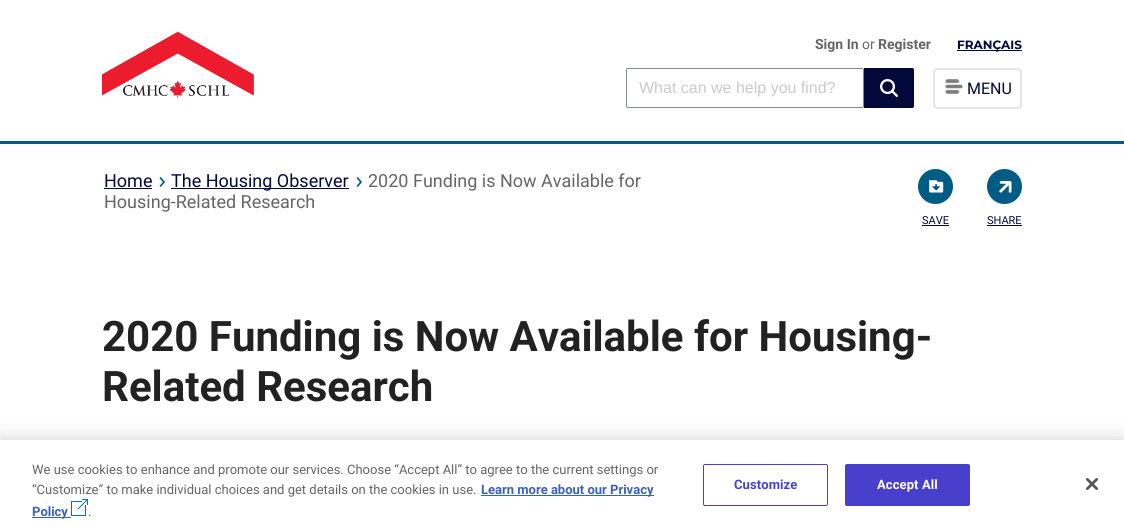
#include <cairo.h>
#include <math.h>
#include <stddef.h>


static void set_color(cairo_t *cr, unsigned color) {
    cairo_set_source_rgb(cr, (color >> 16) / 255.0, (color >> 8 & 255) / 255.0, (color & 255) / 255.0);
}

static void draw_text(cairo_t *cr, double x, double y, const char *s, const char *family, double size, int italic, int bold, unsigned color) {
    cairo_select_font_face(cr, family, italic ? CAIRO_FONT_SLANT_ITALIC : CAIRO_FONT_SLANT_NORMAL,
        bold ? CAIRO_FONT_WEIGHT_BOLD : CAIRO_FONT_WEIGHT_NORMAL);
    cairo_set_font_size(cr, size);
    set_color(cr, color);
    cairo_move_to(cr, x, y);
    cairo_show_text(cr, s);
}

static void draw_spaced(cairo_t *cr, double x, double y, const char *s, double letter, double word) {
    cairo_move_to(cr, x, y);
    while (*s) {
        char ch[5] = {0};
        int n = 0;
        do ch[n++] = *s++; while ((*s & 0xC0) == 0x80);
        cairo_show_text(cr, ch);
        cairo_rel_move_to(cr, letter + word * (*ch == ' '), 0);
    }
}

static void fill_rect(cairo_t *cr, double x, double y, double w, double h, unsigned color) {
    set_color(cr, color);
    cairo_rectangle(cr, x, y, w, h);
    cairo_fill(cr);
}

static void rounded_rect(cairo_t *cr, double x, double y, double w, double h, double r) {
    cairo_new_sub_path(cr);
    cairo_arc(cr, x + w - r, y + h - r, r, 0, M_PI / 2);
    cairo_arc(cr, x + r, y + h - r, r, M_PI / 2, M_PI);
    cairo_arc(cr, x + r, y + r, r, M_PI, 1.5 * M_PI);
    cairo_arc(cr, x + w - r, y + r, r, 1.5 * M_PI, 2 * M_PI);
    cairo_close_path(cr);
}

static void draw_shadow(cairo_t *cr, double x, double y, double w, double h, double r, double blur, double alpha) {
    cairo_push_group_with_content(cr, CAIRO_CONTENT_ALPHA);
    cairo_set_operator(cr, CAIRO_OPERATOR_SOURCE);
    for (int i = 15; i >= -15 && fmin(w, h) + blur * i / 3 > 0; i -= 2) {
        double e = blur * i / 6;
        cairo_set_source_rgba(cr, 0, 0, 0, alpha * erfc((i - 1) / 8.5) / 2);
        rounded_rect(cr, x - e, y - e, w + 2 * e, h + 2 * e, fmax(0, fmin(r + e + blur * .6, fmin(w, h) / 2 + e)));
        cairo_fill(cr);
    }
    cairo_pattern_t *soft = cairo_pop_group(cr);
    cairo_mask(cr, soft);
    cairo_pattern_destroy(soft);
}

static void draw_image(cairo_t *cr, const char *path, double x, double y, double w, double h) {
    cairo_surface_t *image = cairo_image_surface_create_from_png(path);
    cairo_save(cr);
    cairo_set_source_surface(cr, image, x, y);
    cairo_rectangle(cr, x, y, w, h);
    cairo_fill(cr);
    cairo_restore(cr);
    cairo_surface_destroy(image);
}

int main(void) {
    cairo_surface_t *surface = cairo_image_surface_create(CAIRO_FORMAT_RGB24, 1124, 532);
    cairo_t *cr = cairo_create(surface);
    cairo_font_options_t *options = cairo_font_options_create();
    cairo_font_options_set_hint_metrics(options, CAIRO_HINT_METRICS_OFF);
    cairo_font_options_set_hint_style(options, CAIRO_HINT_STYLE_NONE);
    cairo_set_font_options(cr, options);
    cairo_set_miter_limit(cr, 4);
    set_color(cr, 0xFFFFFF);
    cairo_paint(cr);
    fill_rect(cr, 0, 141, 1124, 3, 0x005C84);
    draw_image(cr, "assets/img1.png", 102, 31, 152, 68);
    draw_text(cr, 815, 49, "Sign In", "Roboto", 14, 0, 1, 0x656565);
    draw_text(cr, 862, 49, "or", "Roboto", 14, 0, 0, 0x656565);
    draw_text(cr, 878, 49, "Register", "Roboto", 14, 0, 1, 0x656565);
    fill_rect(cr, 957, 50, 65, 1, 0x00093A);
    draw_text(cr, 957, 49, "FRANÇAIS", "Montserrat Thin", 12, 0, 0, 0x00093A);
    rounded_rect(cr, 626.5, 68.5, 237, 39, 1.5);
    set_color(cr, 0x7E8C9A);
    cairo_set_line_width(cr, 1);
    cairo_stroke(cr);
    set_color(cr, 0xFFFFFF);
    rounded_rect(cr, 627, 69, 236, 37, 2);
    cairo_fill(cr);
    draw_text(cr, 639, 93, "What can we help you find?", "Liberation Sans", 16, 0, 0, 0xCACACA);
    set_color(cr, 0x00093A);
    cairo_new_path(cr);
    cairo_move_to(cr, 864.5, 68.5);
    cairo_line_to(cr, 912, 68.5);
    cairo_curve_to(cr, 913, 68.5, 913.5, 69, 913.5, 70);
    cairo_line_to(cr, 913.5, 106);
    cairo_curve_to(cr, 913.5, 107, 913, 107.5, 912, 107.5);
    cairo_line_to(cr, 864.5, 107.5);
    cairo_close_path(cr);
    cairo_fill_preserve(cr);
    cairo_stroke(cr);
    draw_image(cr, "assets/img2.png", 880, 79, 18, 18);
    rounded_rect(cr, 934, 69, 87, 39, 3);
    set_color(cr, 0xE5E5E5);
    cairo_set_line_width(cr, 2);
    cairo_stroke(cr);
    draw_image(cr, "assets/img3.png", 945, 79, 18, 15);
    draw_text(cr, 967, 94, "MENU", "Roboto", 16, 0, 0, 0x00093A);
    draw_text(cr, 104, 187, "Home", "Roboto", 18, 0, 0, 0x00093A);
    fill_rect(cr, 104, 188, 48, 1, 0x00093A);
    cairo_new_path(cr);
    cairo_move_to(cr, 160.5, 186);
    cairo_line_to(cr, 164, 182);
    cairo_line_to(cr, 160.5, 178);
    set_color(cr, 0x005C84);
    cairo_set_line_width(cr, 1.7);
    cairo_set_line_cap(cr, CAIRO_LINE_CAP_ROUND);
    cairo_set_line_join(cr, CAIRO_LINE_JOIN_ROUND);
    cairo_stroke(cr);
    fill_rect(cr, 171, 188, 178, 1, 0x00093A);
    draw_text(cr, 171, 187, "The Housing Observer", "Roboto", 18, 0, 0, 0x00093A);
    cairo_new_path(cr);
    cairo_move_to(cr, 357.5, 186);
    cairo_line_to(cr, 361, 182);
    cairo_line_to(cr, 357.5, 178);
    set_color(cr, 0x005C84);
    cairo_stroke(cr);
    draw_text(cr, 368, 187, "2020 Funding is Now Available for", "Roboto", 18, 0, 0, 0x656565);
    draw_text(cr, 104, 208, "Housing-Related Research", "Roboto", 18, 0, 0, 0x656565);
    set_color(cr, 0x005C84);
    cairo_new_path(cr);
    cairo_arc(cr, 935.5, 186.5, 17.5, 0, 2 * M_PI);
    cairo_fill(cr);
    draw_image(cr, "assets/img4.png", 929, 180, 15, 13);
    draw_text(cr, 922, 224, "SAVE", "Roboto", 11, 0, 0, 0x00093A);
    fill_rect(cr, 922, 225, 27, 1, 0x00093A);
    set_color(cr, 0x005C84);
    cairo_new_path(cr);
    cairo_arc(cr, 1004.5, 186.5, 17.5, 0, 2 * M_PI);
    cairo_fill(cr);
    draw_image(cr, "assets/img5.png", 999, 181, 13, 12);
    draw_text(cr, 987, 224, "SHARE", "Roboto", 11, 0, 0, 0x00093A);
    fill_rect(cr, 987, 225, 35, 1, 0x00093A);
    draw_text(cr, 102, 351, "2020 Funding is Now Available for Housing-", "Roboto", 42, 0, 1, 0x222222);
    draw_text(cr, 102, 401, "Related Research", "Roboto", 42, 0, 1, 0x222222);
    set_color(cr, 0x000000);
    draw_shadow(cr, 0, 440, 1124, 92, 0, 9, 0.2);
    fill_rect(cr, 0, 440, 1124, 92, 0xFFFFFF);
    draw_text(cr, 32, 474, "We use cookies to enhance and promote our services. Choose “Accept All” to agree to the current settings or", "Roboto", 13, 0, 0, 0x656565);
    draw_text(cr, 32, 494, "“Customize” to make individual choices and get details on the cookies in use.", "Roboto", 13, 0, 0, 0x656565);
    fill_rect(cr, 481, 495, 173, 1, 0x3860BE);
    draw_text(cr, 481, 494, "Learn more about our Privacy", "Roboto", 13, 0, 1, 0x3860BE);
    fill_rect(cr, 32, 517, 39, 1, 0x3860BE);
    draw_text(cr, 32, 516, "Policy", "Roboto", 13, 0, 1, 0x3860BE);
    draw_image(cr, "assets/img6.png", 71, 499, 17, 17);
    draw_text(cr, 88, 516, ".", "Roboto", 13, 0, 0, 0x656565);
    rounded_rect(cr, 703.5, 464.5, 124, 41, 1.5);
    set_color(cr, 0x483FCD);
    cairo_set_line_width(cr, 1);
    cairo_set_line_cap(cr, CAIRO_LINE_CAP_BUTT);
    cairo_set_line_join(cr, CAIRO_LINE_JOIN_MITER);
    cairo_stroke(cr);
    cairo_select_font_face(cr, "Roboto", CAIRO_FONT_SLANT_NORMAL, CAIRO_FONT_WEIGHT_BOLD);
    draw_spaced(cr, 734, 489, "Customize", 0.1, 0);
    rounded_rect(cr, 845.5, 464.5, 124, 41, 1.5);
    cairo_fill_preserve(cr);
    cairo_stroke(cr);
    set_color(cr, 0xFFFFFF);
    draw_spaced(cr, 877, 489, "Accept All", 0.1, 0);
    draw_image(cr, "assets/img7.png", 1086, 478, 12, 12);
    cairo_surface_write_to_png(surface, "output.png");
    cairo_font_options_destroy(options);
    cairo_destroy(cr);
    cairo_surface_destroy(surface);
    return 0;
}
